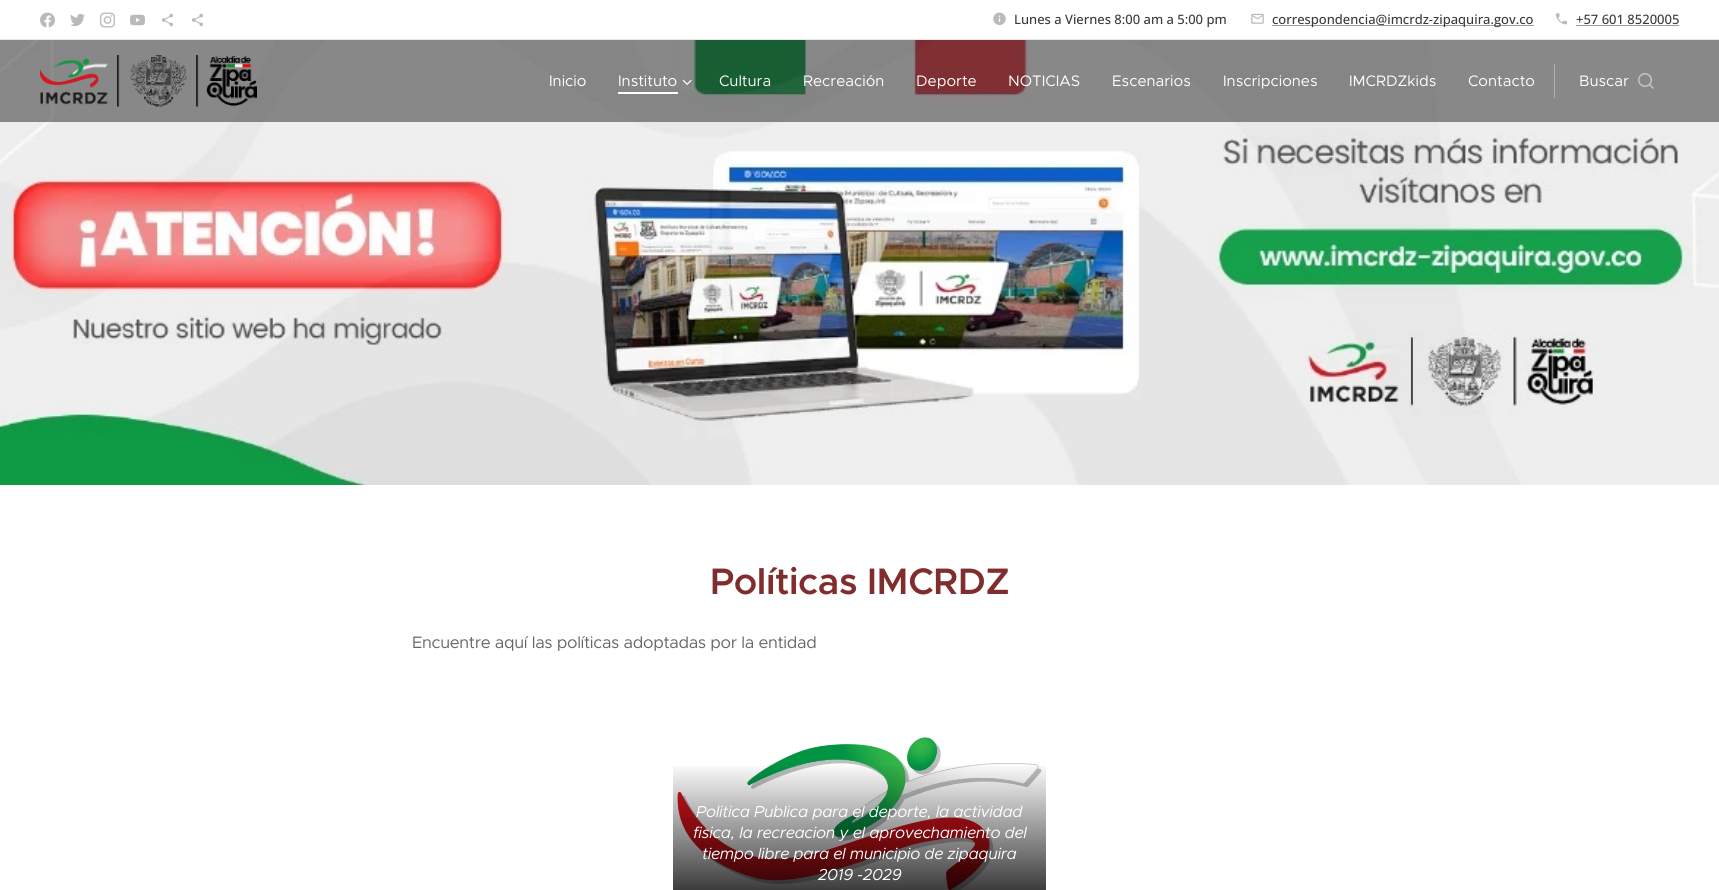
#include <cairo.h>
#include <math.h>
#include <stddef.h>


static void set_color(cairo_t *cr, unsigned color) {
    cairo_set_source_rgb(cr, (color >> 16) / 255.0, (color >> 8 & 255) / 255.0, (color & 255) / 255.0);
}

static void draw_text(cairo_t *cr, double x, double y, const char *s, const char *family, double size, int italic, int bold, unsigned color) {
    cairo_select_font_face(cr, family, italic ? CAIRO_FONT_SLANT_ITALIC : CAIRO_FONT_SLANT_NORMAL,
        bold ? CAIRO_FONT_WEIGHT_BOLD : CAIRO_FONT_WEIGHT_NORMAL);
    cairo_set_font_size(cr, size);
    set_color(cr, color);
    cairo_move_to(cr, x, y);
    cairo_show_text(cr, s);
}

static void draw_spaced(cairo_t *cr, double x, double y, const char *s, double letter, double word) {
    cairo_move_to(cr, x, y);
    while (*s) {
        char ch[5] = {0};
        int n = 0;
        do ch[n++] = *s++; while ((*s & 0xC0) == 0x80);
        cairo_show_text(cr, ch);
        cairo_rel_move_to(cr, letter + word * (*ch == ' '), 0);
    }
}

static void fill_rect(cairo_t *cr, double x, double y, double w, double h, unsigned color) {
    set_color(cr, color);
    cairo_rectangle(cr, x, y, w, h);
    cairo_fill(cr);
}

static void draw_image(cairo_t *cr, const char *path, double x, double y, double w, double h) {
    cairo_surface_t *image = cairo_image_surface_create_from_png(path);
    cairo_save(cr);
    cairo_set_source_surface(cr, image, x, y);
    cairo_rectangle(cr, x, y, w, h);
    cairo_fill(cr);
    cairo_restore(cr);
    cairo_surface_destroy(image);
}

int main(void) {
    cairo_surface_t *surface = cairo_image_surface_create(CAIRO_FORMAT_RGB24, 1719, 890);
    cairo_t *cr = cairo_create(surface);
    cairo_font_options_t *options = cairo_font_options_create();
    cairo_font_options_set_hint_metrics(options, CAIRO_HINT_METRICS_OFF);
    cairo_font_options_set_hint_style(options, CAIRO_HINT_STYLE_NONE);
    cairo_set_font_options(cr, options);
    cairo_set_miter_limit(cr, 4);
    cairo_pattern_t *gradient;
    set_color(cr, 0xFFFFFF);
    cairo_paint(cr);
    draw_image(cr, "assets/img1.png", 40, 12, 15, 16);
    draw_image(cr, "assets/img2.png", 70, 13, 15, 14);
    draw_image(cr, "assets/img3.png", 100, 12, 15, 16);
    draw_image(cr, "assets/img4.png", 130, 14, 15, 12);
    draw_image(cr, "assets/img5.png", 162, 13, 12, 14);
    draw_image(cr, "assets/img5.png", 192, 13, 12, 14);
    draw_image(cr, "assets/img6.png", 993, 12, 13, 13);
    draw_text(cr, 1014, 24, "Lunes a Viernes 8:00 am a 5:00 pm", "Open Sans Medium", 13, 0, 0, 0x393939);
    draw_image(cr, "assets/img7.png", 1251, 13, 13, 11);
    fill_rect(cr, 1272, 25, 262, 1, 0x9C9C9C);
    draw_text(cr, 1272, 24, "correspondencia@imcrdz-zipaquira.gov.co", "Open Sans Medium", 13, 0, 0, 0x393939);
    draw_image(cr, "assets/img8.png", 1555, 13, 13, 12);
    draw_text(cr, 1576, 24, "+57 601 8520005", "Open Sans Medium", 13, 0, 0, 0x393939);
    fill_rect(cr, 1576, 25, 103, 1, 0x9C9C9C);
    fill_rect(cr, 0, 39, 1719, 1, 0xE8E8E8);
    draw_image(cr, "assets/img12.png", 0, 40, 1719, 445);
    cairo_set_source_rgba(cr, 0.133, 0.133, 0.133, 0.5);
    cairo_rectangle(cr, 0, 40, 1719, 82);
    cairo_fill(cr);
    draw_image(cr, "assets/img9.png", 40, 55, 217, 52);
    draw_text(cr, 549, 86, "Inicio", "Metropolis", 15.25, 0, 0, 0xFFFFFF);
    draw_text(cr, 618, 86, "Instituto", "Metropolis", 15.25, 0, 0, 0xFFFFFF);
    fill_rect(cr, 618, 92, 60, 2, 0xFFFFFF);
    draw_image(cr, "assets/img10.png", 682, 79, 10, 6);
    draw_text(cr, 719, 86, "Cultura", "Metropolis", 15.25, 0, 0, 0xFFFFFF);
    draw_text(cr, 803, 86, "Recreación", "Metropolis", 15.25, 0, 0, 0xFFFFFF);
    draw_text(cr, 916, 86, "Deporte", "Metropolis", 15.25, 0, 0, 0xFFFFFF);
    draw_text(cr, 1008, 86, "NOTICIAS", "Metropolis", 15.25, 0, 0, 0xFFFFFF);
    draw_text(cr, 1112, 86, "Escenarios", "Metropolis", 15.25, 0, 0, 0xFFFFFF);
    draw_text(cr, 1223, 86, "Inscripciones", "Metropolis", 15.25, 0, 0, 0xFFFFFF);
    draw_text(cr, 1349, 86, "IMCRDZkids", "Metropolis", 15.25, 0, 0, 0xFFFFFF);
    draw_text(cr, 1468, 86, "Contacto", "Metropolis", 15.25, 0, 0, 0xFFFFFF);
    fill_rect(cr, 1554, 64, 1, 34, 0xB2B2B2);
    draw_text(cr, 1579, 86, "Buscar", "Metropolis", 15.25, 0, 0, 0xFFFFFF);
    draw_image(cr, "assets/img11.png", 1638, 73, 16, 16);
    cairo_select_font_face(cr, "Metropolis SemiBold", CAIRO_FONT_SLANT_NORMAL, CAIRO_FONT_WEIGHT_NORMAL);
    cairo_set_font_size(cr, 37);
    set_color(cr, 0x7F2E2D);
    draw_spaced(cr, 710, 594, "Políticas IMCRDZ", -0.4, 0);
    cairo_select_font_face(cr, "Metropolis", CAIRO_FONT_SLANT_NORMAL, CAIRO_FONT_WEIGHT_NORMAL);
    cairo_set_font_size(cr, 16.6);
    set_color(cr, 0x666666);
    draw_spaced(cr, 412, 648, "Encuentre aquí las políticas adoptadas por la entidad", -0.32, 0);
    draw_image(cr, "assets/img13.png", 677, 737, 365, 153);
    gradient = cairo_pattern_create_linear(860, 762, 860, 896);
    cairo_pattern_add_color_stop_rgba(gradient, 0, 0, 0, 0, 0);
    cairo_pattern_add_color_stop_rgba(gradient, 1, 0, 0, 0, 0.8);
    cairo_set_source(cr, gradient);
    cairo_pattern_destroy(gradient);
    cairo_rectangle(cr, 673, 766, 373, 124);
    cairo_fill(cr);
    cairo_select_font_face(cr, "Metropolis", CAIRO_FONT_SLANT_ITALIC, CAIRO_FONT_WEIGHT_NORMAL);
    cairo_set_font_size(cr, 16);
    set_color(cr, 0xFFFFFF);
    draw_spaced(cr, 696, 817, "Politica Publica para el deporte, la actividad", -0.32, 0);
    draw_spaced(cr, 693, 838, "fisica, la recreacion y el aprovechamiento del", -0.32, 0);
    draw_spaced(cr, 702, 859, "tiempo libre para el municipio de zipaquira", -0.32, 0);
    draw_spaced(cr, 818, 880, "2019 -2029", -0.32, 0);
    cairo_surface_write_to_png(surface, "output.png");
    cairo_font_options_destroy(options);
    cairo_destroy(cr);
    cairo_surface_destroy(surface);
    return 0;
}
